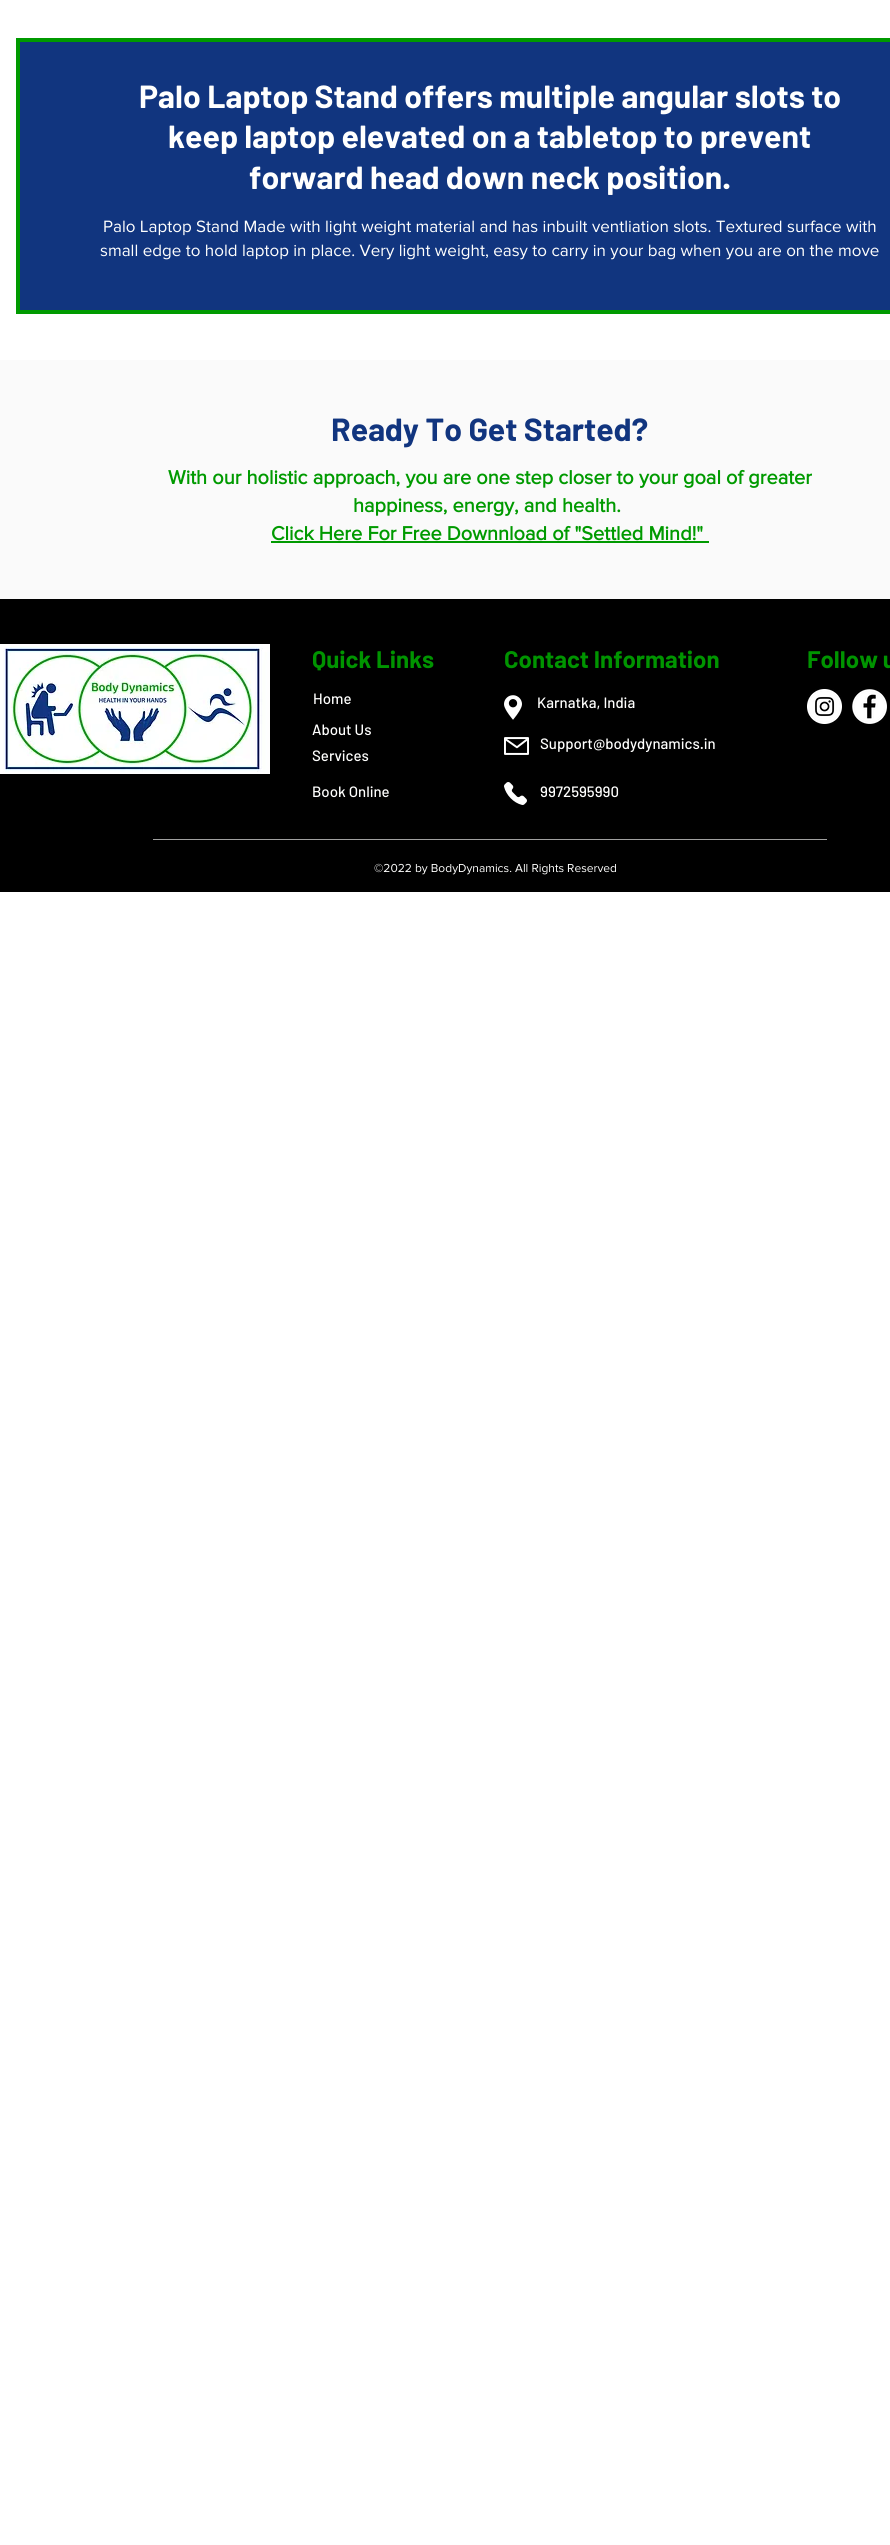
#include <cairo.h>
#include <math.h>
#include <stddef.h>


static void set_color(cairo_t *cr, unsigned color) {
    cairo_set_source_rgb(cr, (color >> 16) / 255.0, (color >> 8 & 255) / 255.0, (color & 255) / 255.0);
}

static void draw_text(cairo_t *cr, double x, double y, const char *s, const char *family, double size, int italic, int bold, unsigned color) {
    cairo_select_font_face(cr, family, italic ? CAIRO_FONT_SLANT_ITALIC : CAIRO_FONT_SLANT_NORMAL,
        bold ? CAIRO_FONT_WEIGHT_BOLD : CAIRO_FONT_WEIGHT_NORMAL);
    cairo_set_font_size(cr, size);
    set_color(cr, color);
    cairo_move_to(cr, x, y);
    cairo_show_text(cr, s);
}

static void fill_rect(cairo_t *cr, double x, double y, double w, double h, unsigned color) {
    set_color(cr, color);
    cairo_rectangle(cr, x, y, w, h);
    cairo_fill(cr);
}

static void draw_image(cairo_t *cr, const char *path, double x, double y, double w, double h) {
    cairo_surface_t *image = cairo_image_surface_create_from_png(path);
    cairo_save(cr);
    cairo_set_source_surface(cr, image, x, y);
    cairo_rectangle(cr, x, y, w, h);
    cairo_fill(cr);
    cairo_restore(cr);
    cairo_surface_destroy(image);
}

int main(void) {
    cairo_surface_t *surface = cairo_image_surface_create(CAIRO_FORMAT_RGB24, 890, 2545);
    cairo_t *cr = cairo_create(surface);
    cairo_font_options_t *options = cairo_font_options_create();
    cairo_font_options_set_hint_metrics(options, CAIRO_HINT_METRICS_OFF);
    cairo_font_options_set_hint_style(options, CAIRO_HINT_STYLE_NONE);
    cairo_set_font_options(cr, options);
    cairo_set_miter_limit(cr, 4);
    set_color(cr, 0xFFFFFF);
    cairo_paint(cr);
    set_color(cr, 0x11357F);
    cairo_rectangle(cr, 18, 40, 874, 272);
    cairo_fill_preserve(cr);
    set_color(cr, 0x009A00);
    cairo_set_line_width(cr, 4);
    cairo_stroke(cr);
    draw_text(cr, 139, 108, "Palo Laptop Stand offers multiple angular slots to", "Barlow", 32, 0, 1, 0xFFFFFE);
    draw_text(cr, 168, 148, "keep laptop elevated on a tabletop to prevent", "Barlow", 32, 0, 1, 0xFFFFFE);
    draw_text(cr, 249, 189, "forward head down neck position.", "Barlow", 32, 0, 1, 0xFFFFFE);
    draw_text(cr, 103, 232, "Palo Laptop Stand Made with light weight material and has inbuilt ventliation slots. Textured surface with", "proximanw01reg", 17, 0, 0, 0xFFFFFE);
    draw_text(cr, 100, 256, "small edge to hold laptop in place. Very light weight, easy to carry in your bag when you are on the move", "proximanw01reg", 17, 0, 0, 0xFFFFFE);
    fill_rect(cr, 0, 360, 890, 239, 0xFAFAFA);
    draw_text(cr, 331, 441, "Ready To Get Started?", "Barlow", 32, 0, 1, 0x11357F);
    draw_text(cr, 168, 484, "With our holistic approach, you are one step closer to your goal of greater", "proximanw01reg", 20, 0, 1, 0x009A00);
    draw_text(cr, 353, 512, "happiness, energy, and health.", "proximanw01reg", 20, 0, 1, 0x009A00);
    draw_text(cr, 271, 540, "Click Here For Free Downnload of \"Settled Mind!\"", "proximanw01reg", 20, 0, 1, 0x009A00);
    fill_rect(cr, 271, 541, 438, 2, 0x009A00);
    fill_rect(cr, 0, 599, 890, 293, 0x000000);
    draw_image(cr, "assets/img1.png", 0, 644, 270, 130);
    draw_text(cr, 312, 668, "Quick Links", "Barlow", 24, 0, 1, 0x009400);
    draw_text(cr, 504, 668, "Contact Information", "Barlow", 24, 0, 1, 0x009400);
    draw_text(cr, 807, 668, "Follow u", "Barlow", 24, 0, 1, 0x009400);
    draw_text(cr, 313, 704, "Home", "Barlow Medium", 15, 0, 0, 0xFFFFFE);
    draw_image(cr, "assets/img2.png", 504, 695, 18, 25);
    draw_text(cr, 537, 708, "Karnatka, India", "Barlow Medium", 15, 0, 0, 0xFFFFFE);
    draw_image(cr, "assets/img3.png", 807, 689, 35, 35);
    draw_image(cr, "assets/img4.png", 852, 689, 35, 35);
    draw_text(cr, 312, 735, "About Us", "Barlow Medium", 15, 0, 0, 0xFFFFFE);
    draw_image(cr, "assets/img5.png", 504, 737, 25, 18);
    draw_text(cr, 540, 749, "Support@bodydynamics.in", "Barlow Medium", 15, 0, 0, 0xFFFFFE);
    draw_text(cr, 312, 761, "Services", "Barlow Medium", 15, 0, 0, 0xFFFFFE);
    draw_text(cr, 312, 797, "Book Online", "Barlow Medium", 15, 0, 0, 0xFFFFFE);
    draw_image(cr, "assets/img6.png", 504, 782, 23, 23);
    draw_text(cr, 540, 797, "9972595990", "Barlow Medium", 15, 0, 0, 0xFFFFFE);
    draw_text(cr, 374, 872, "©2022 by BodyDynamics. All Rights Reserved", "proximanw01reg", 12, 0, 0, 0xFFFFFE);
    fill_rect(cr, 153, 839, 674, 1, 0xA0A09F);
    cairo_surface_write_to_png(surface, "output.png");
    cairo_font_options_destroy(options);
    cairo_destroy(cr);
    cairo_surface_destroy(surface);
    return 0;
}
